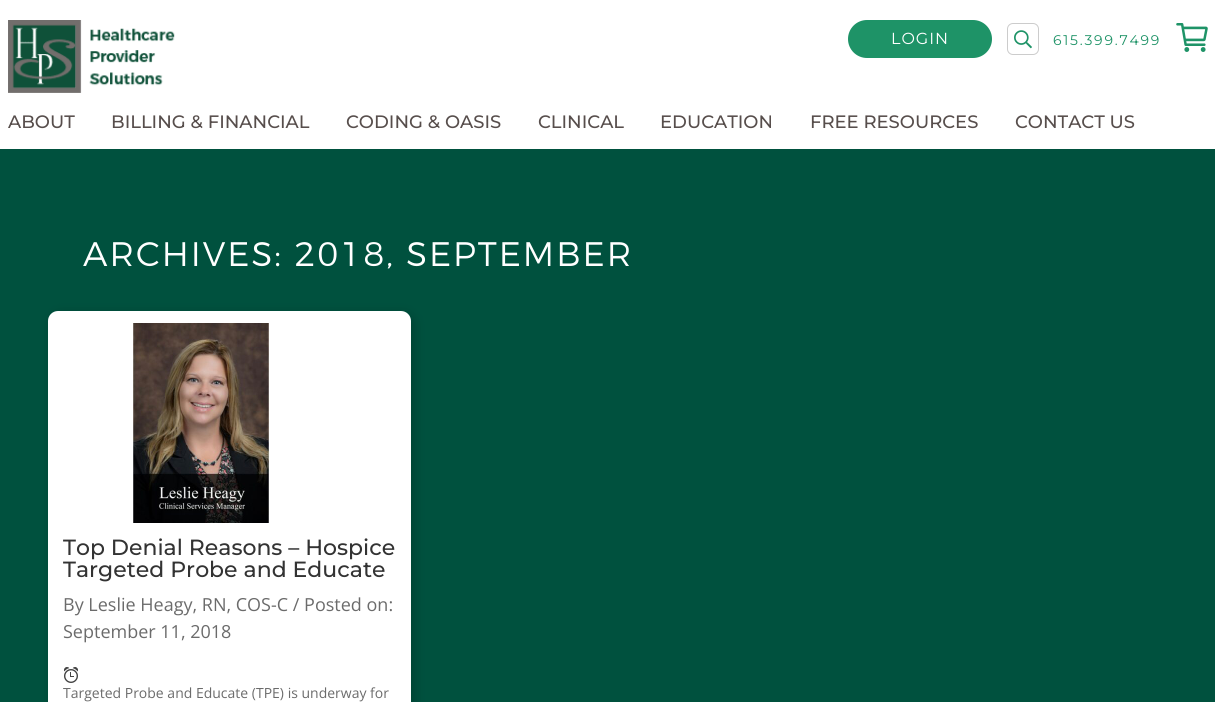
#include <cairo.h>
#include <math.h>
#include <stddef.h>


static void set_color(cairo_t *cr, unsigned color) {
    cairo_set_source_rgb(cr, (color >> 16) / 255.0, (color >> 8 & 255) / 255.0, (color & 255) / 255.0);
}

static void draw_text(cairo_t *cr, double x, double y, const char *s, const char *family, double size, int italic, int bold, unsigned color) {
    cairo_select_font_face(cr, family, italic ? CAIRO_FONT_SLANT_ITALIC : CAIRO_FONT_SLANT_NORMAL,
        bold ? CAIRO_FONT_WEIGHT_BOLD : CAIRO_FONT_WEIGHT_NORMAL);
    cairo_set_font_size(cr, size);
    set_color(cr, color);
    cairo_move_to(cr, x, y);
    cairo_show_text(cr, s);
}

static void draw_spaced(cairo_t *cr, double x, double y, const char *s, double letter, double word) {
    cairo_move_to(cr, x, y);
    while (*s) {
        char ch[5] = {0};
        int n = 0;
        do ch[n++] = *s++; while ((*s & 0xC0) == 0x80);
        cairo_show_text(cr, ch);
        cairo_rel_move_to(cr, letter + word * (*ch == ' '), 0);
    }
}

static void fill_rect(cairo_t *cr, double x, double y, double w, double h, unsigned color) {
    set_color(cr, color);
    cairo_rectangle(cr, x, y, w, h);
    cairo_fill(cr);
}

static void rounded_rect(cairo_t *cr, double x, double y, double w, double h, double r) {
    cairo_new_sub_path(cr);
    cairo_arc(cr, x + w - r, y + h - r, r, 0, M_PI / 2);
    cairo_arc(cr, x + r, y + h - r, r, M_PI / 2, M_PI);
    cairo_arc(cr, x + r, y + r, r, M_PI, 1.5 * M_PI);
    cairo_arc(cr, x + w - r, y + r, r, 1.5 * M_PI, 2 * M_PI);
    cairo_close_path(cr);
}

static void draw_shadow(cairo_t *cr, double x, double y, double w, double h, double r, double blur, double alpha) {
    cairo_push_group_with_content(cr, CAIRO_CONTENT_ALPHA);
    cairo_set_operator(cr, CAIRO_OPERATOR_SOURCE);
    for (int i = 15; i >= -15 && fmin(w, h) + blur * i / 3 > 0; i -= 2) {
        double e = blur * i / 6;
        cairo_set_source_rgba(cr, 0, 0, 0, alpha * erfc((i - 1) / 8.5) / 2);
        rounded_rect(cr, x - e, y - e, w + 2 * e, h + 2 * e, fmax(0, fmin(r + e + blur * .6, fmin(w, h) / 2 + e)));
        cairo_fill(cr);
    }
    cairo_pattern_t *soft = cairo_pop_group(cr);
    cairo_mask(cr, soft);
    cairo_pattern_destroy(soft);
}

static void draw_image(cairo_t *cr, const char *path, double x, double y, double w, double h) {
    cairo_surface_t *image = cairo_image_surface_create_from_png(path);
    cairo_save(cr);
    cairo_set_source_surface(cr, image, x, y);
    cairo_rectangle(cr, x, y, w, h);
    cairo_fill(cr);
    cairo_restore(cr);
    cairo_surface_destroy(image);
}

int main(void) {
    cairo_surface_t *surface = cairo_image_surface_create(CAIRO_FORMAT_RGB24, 1215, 702);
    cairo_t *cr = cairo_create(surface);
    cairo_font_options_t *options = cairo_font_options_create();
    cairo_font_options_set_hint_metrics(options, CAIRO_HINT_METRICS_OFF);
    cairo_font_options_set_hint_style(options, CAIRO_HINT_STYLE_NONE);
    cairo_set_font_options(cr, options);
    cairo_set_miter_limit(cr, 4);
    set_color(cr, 0xFFFFFF);
    cairo_paint(cr);
    draw_image(cr, "assets/img1.png", 8, 20, 167, 73);
    set_color(cr, 0x1E9367);
    rounded_rect(cr, 849, 21, 142, 36, 18);
    cairo_fill_preserve(cr);
    cairo_stroke(cr);
    cairo_select_font_face(cr, "Montserrat", CAIRO_FONT_SLANT_NORMAL, CAIRO_FONT_WEIGHT_NORMAL);
    cairo_set_font_size(cr, 16);
    set_color(cr, 0xFFFFFF);
    draw_spaced(cr, 891, 44, "LOGIN", 1, 0);
    rounded_rect(cr, 1007.5, 23.5, 31, 31, 5.5);
    set_color(cr, 0xCCCCCC);
    cairo_set_line_width(cr, 1);
    cairo_stroke(cr);
    draw_image(cr, "assets/img2.png", 1014, 30, 18, 19);
    cairo_set_font_size(cr, 14);
    set_color(cr, 0x1E9367);
    draw_spaced(cr, 1053, 45, "615.399.7499", 1.75, 0);
    draw_image(cr, "assets/img3.png", 1176, 23, 32, 29);
    draw_text(cr, 8, 128, "ABOUT", "Montserrat Medium", 18, 0, 0, 0x574E4C);
    draw_text(cr, 111, 128, "BILLING & FINANCIAL", "Montserrat Medium", 18, 0, 0, 0x574E4C);
    draw_text(cr, 346, 128, "CODING & OASIS", "Montserrat Medium", 18, 0, 0, 0x574E4C);
    draw_text(cr, 538, 128, "CLINICAL", "Montserrat Medium", 18, 0, 0, 0x574E4C);
    draw_text(cr, 660, 128, "EDUCATION", "Montserrat Medium", 18, 0, 0, 0x574E4C);
    draw_text(cr, 810, 128, "FREE RESOURCES", "Montserrat Medium", 18, 0, 0, 0x574E4C);
    draw_text(cr, 1015, 128, "CONTACT US", "Montserrat Medium", 18, 0, 0, 0x574E4C);
    fill_rect(cr, 0, 149, 1215, 553, 0x00513E);
    cairo_select_font_face(cr, "Montserrat Light", CAIRO_FONT_SLANT_NORMAL, CAIRO_FONT_WEIGHT_NORMAL);
    cairo_set_font_size(cr, 34);
    set_color(cr, 0xFFFFFF);
    draw_spaced(cr, 83, 266, "ARCHIVES: 2018, SEPTEMBER", 2, 0);
    set_color(cr, 0x000000);
    draw_shadow(cr, 51, 314, 363, 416, 10, 6, 0.2);
    set_color(cr, 0xFFFFFF);
    rounded_rect(cr, 48, 311, 363, 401, 10);
    cairo_fill(cr);
    draw_image(cr, "assets/img4.png", 133, 323, 137, 200);
    draw_text(cr, 63, 555, "Top Denial Reasons – Hospice", "Montserrat Medium", 22, 0, 0, 0x333333);
    draw_text(cr, 63, 577, "Targeted Probe and Educate", "Montserrat Medium", 22, 0, 0, 0x333333);
    draw_text(cr, 63, 611, "By Leslie Heagy, RN, COS-C / Posted on:", "Open Sans", 18, 0, 0, 0x6B6B6B);
    draw_text(cr, 63, 638, "September 11, 2018", "Open Sans", 18, 0, 0, 0x6B6B6B);
    draw_image(cr, "assets/img5.png", 64, 667, 14, 16);
    draw_text(cr, 63, 698, "Targeted Probe and Educate (TPE) is underway for", "Open Sans", 14, 0, 0, 0x6B6B6B);
    cairo_surface_write_to_png(surface, "output.png");
    cairo_font_options_destroy(options);
    cairo_destroy(cr);
    cairo_surface_destroy(surface);
    return 0;
}
